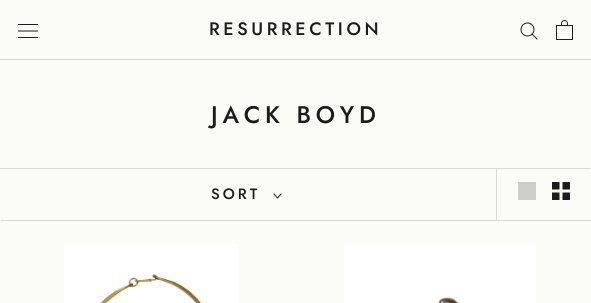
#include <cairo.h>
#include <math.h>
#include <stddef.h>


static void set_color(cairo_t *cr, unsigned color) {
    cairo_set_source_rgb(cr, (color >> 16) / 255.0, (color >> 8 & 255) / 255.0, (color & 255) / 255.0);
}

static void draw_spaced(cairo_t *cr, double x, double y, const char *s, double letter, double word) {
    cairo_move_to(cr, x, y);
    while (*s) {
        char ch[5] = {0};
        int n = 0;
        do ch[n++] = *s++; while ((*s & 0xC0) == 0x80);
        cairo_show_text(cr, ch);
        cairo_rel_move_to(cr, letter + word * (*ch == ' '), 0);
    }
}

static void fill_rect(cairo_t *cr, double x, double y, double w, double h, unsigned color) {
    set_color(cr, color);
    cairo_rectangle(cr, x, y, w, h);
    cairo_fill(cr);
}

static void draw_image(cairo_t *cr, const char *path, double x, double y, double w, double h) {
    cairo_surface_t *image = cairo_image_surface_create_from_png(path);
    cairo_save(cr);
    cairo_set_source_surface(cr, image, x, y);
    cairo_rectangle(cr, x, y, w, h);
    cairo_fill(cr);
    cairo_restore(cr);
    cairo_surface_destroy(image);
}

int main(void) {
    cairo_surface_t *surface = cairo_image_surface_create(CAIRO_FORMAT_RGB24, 591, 303);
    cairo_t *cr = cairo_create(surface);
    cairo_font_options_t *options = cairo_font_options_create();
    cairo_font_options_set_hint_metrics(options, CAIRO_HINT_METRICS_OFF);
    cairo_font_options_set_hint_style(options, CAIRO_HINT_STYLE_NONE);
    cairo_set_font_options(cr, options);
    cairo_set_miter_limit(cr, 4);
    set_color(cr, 0xFBFCF7);
    cairo_paint(cr);
    fill_rect(cr, 0, 59, 591, 1, 0xDADAD6);
    draw_image(cr, "assets/img1.png", 18, 24, 20, 14);
    cairo_select_font_face(cr, "Jost Medium", CAIRO_FONT_SLANT_NORMAL, CAIRO_FONT_WEIGHT_NORMAL);
    cairo_set_font_size(cr, 18);
    set_color(cr, 0x1C1B1B);
    draw_spaced(cr, 209, 35, "RESURRECTION", 3.6, 0);
    cairo_new_path(cr);
    cairo_move_to(cr, 537, 39);
    cairo_line_to(cr, 532, 34);
    set_color(cr, 0x1C1C1C);
    cairo_set_line_width(cr, 1);
    cairo_set_line_cap(cr, CAIRO_LINE_CAP_SQUARE);
    cairo_stroke(cr);
    cairo_arc(cr, 527.5, 29.5, 6.5, 0, 2 * M_PI);
    cairo_set_line_cap(cr, CAIRO_LINE_CAP_BUTT);
    cairo_stroke(cr);
    draw_image(cr, "assets/img2.png", 556, 20, 17, 20);
    cairo_set_font_size(cr, 24);
    set_color(cr, 0x1C1B1B);
    draw_spaced(cr, 211, 123, "JACK BOYD", 4.75, 0);
    set_color(cr, 0xDADAD6);
    cairo_new_path(cr);
    cairo_move_to(cr, -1, 168);
    cairo_line_to(cr, -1, 219);
    cairo_line_to(cr, 0, 219);
    cairo_line_to(cr, 0, 169);
    cairo_line_to(cr, 590, 169);
    cairo_line_to(cr, 590, 168);
    cairo_close_path(cr);
    cairo_fill(cr);
    cairo_new_path(cr);
    cairo_move_to(cr, 1, 220);
    cairo_line_to(cr, 1, 221);
    cairo_line_to(cr, 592, 221);
    cairo_line_to(cr, 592, 170);
    cairo_line_to(cr, 591, 170);
    cairo_line_to(cr, 591, 220);
    cairo_close_path(cr);
    cairo_fill(cr);
    cairo_set_font_size(cr, 15);
    set_color(cr, 0x1C1B1B);
    draw_spaced(cr, 211, 199, "SORT", 3, 0);
    cairo_new_path(cr);
    cairo_move_to(cr, 281, 194);
    cairo_line_to(cr, 277.5, 198);
    cairo_line_to(cr, 274, 194);
    set_color(cr, 0x1C1C1C);
    cairo_set_line_cap(cr, CAIRO_LINE_CAP_SQUARE);
    cairo_stroke(cr);
    fill_rect(cr, 496, 169, 1, 51, 0xDADAD6);
    fill_rect(cr, 518, 182, 18, 18, 0xCECFCB);
    draw_image(cr, "assets/img3.png", 552, 182, 18, 18);
    draw_image(cr, "assets/img4.png", 64, 244, 175, 59);
    draw_image(cr, "assets/img5.png", 344, 244, 192, 59);
    cairo_surface_write_to_png(surface, "output.png");
    cairo_font_options_destroy(options);
    cairo_destroy(cr);
    cairo_surface_destroy(surface);
    return 0;
}
